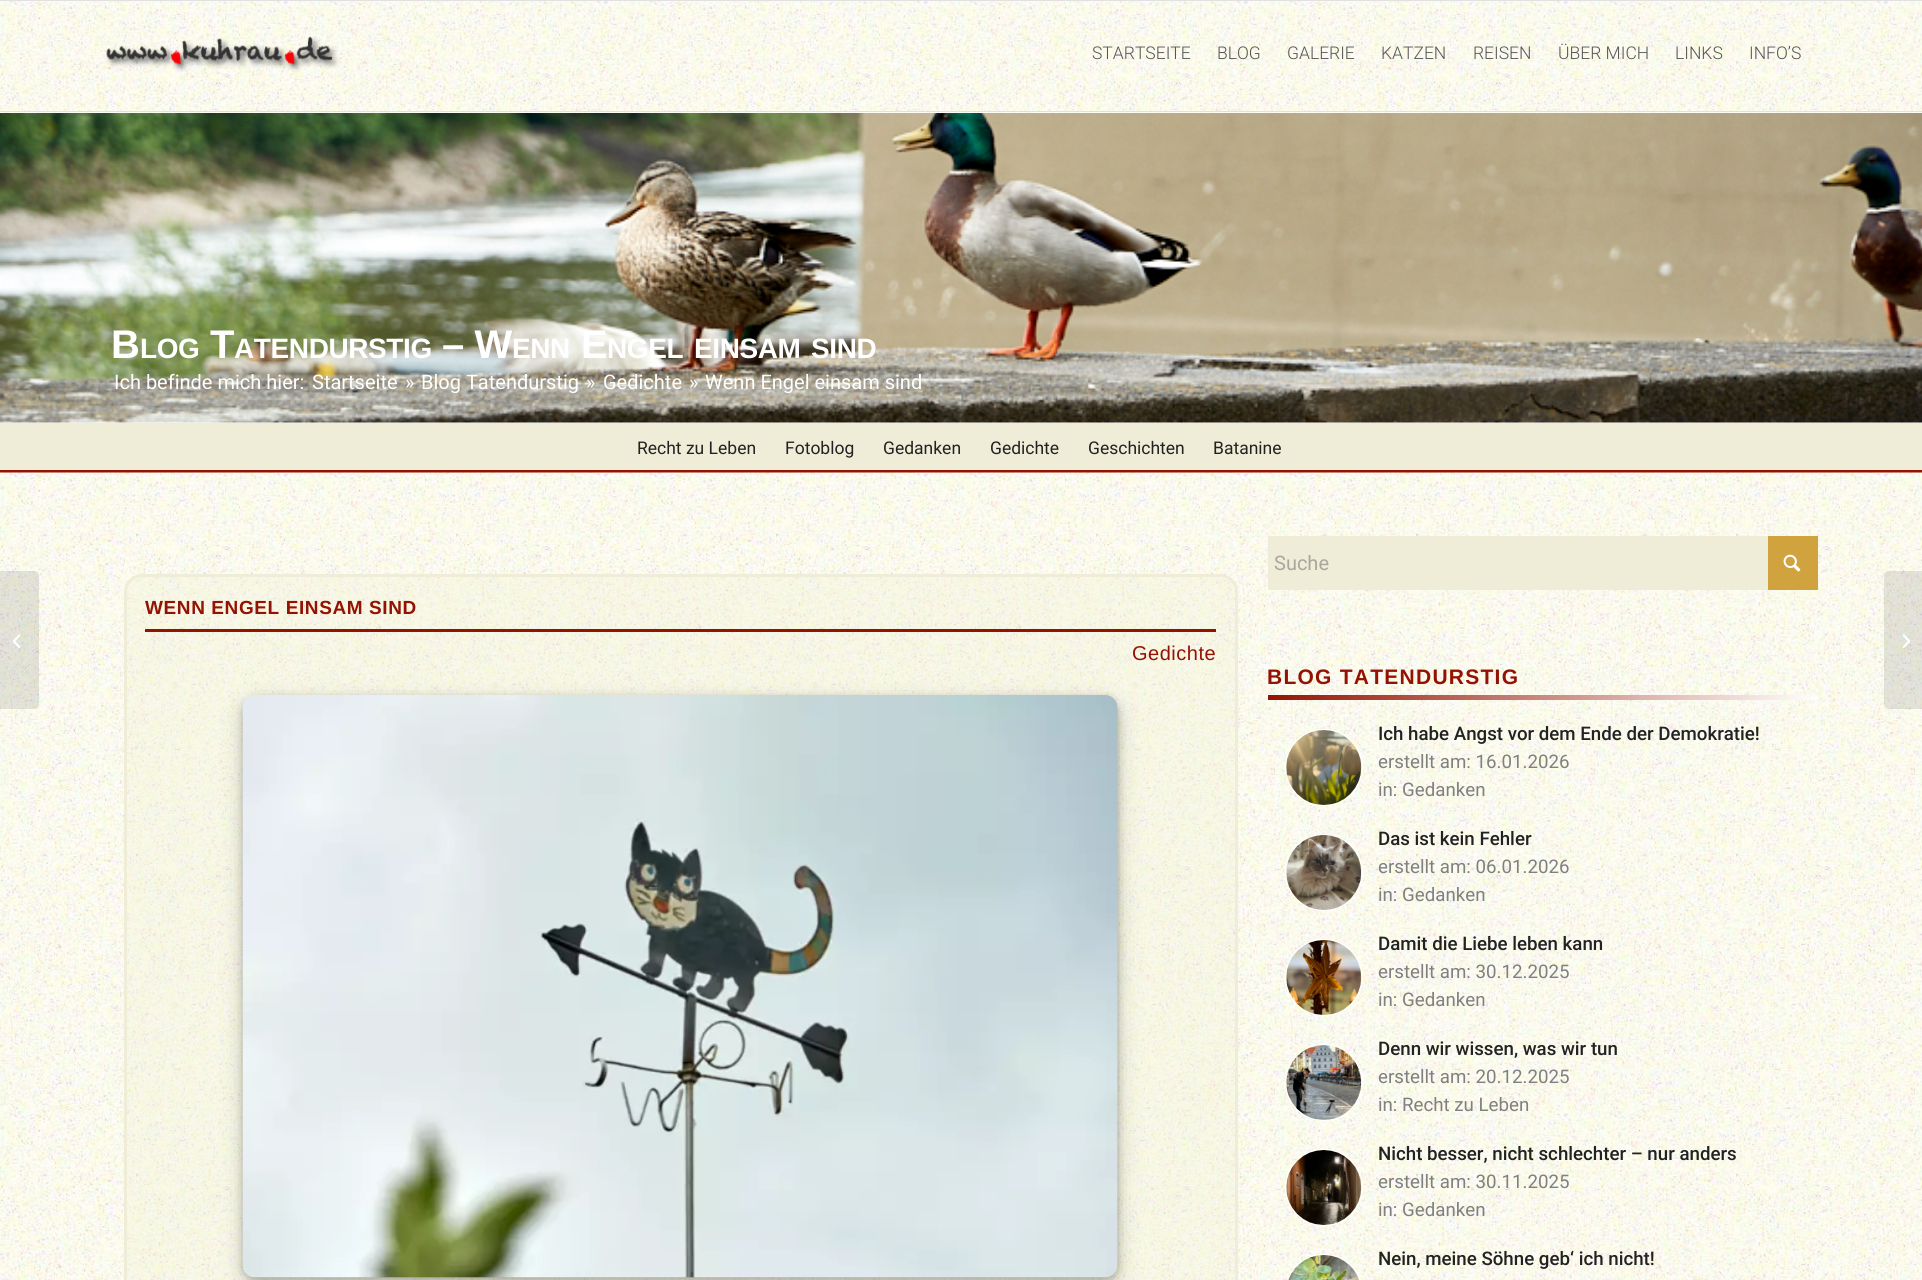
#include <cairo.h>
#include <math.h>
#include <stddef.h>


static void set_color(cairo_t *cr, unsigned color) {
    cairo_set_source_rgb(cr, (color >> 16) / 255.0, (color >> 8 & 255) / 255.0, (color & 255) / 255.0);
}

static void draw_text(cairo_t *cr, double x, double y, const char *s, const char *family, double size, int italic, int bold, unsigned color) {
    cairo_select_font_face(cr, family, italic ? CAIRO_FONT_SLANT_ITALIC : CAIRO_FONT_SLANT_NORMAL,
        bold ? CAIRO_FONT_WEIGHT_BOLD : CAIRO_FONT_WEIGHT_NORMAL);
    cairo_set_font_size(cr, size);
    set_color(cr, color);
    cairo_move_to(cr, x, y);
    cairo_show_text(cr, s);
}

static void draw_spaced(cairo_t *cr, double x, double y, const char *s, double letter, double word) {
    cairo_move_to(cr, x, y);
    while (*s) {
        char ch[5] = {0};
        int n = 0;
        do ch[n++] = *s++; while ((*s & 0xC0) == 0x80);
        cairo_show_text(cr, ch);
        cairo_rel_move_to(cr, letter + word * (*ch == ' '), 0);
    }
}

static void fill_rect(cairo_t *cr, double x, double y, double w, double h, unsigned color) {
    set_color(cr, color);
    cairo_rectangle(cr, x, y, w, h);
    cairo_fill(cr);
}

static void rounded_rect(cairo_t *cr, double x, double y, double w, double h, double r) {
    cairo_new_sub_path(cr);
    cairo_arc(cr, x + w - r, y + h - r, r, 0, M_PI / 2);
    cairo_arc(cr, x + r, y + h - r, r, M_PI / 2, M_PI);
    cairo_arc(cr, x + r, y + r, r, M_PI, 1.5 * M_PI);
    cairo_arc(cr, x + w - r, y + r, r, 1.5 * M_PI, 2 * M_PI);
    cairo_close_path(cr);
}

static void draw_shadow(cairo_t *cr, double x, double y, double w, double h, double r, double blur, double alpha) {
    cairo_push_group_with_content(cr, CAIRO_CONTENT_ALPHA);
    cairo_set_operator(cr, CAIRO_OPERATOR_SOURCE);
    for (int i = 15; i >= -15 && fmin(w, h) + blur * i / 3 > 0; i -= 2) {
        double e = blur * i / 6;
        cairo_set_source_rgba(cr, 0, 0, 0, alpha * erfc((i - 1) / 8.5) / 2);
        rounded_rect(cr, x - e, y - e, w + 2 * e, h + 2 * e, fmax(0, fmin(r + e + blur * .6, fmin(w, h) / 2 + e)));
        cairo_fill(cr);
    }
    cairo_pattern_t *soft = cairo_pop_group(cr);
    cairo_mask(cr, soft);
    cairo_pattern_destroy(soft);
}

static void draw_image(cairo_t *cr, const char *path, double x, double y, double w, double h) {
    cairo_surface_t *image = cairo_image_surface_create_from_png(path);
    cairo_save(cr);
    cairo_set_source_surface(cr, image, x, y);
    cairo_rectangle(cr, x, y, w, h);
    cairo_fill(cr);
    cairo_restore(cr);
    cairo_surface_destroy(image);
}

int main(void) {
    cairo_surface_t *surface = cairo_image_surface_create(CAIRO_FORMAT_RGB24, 1922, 1280);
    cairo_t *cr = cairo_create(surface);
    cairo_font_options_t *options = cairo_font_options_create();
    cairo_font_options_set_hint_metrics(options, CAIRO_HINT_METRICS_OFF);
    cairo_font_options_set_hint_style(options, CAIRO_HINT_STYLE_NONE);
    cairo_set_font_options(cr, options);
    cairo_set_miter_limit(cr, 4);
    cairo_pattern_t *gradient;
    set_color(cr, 0xEFEDD8);
    cairo_paint(cr);
    fill_rect(cr, 0, 112, 1922, 1, 0xFFFFFF);
    draw_image(cr, "assets/img1.png", 0, 1, 1922, 112);
    fill_rect(cr, 0, 0, 1922, 1, 0xE1E1E1);
    fill_rect(cr, 0, 111, 1922, 1, 0xE1E1E1);
    draw_image(cr, "assets/img2.png", 106, 36, 234, 36);
    draw_text(cr, 1092, 59, "STARTSEITE", "Roboto Light", 17.5, 0, 0, 0x555555);
    draw_text(cr, 1217, 59, "BLOG", "Roboto Light", 17.5, 0, 0, 0x555555);
    draw_text(cr, 1287, 59, "GALERIE", "Roboto Light", 17.5, 0, 0, 0x555555);
    draw_text(cr, 1381, 59, "KATZEN", "Roboto Light", 17.5, 0, 0, 0x555555);
    draw_text(cr, 1473, 59, "REISEN", "Roboto Light", 17.5, 0, 0, 0x555555);
    draw_text(cr, 1558, 59, "ÜBER MICH", "Roboto Light", 17.5, 0, 0, 0x555555);
    draw_text(cr, 1675, 59, "LINKS", "Roboto Light", 17.5, 0, 0, 0x555555);
    draw_text(cr, 1749, 59, "INFO’S", "Roboto Light", 17.5, 0, 0, 0x555555);
    fill_rect(cr, 0, 470, 1922, 3, 0x941201);
    draw_image(cr, "assets/img5.png", 0, 472, 1922, 808);
    cairo_set_source_rgba(cr, 0, 0, 0, 0.1);
    cairo_new_path(cr);
    cairo_move_to(cr, 0, 571);
    cairo_line_to(cr, 34, 571);
    cairo_curve_to(cr, 37, 571, 39, 573, 39, 576);
    cairo_line_to(cr, 39, 704);
    cairo_curve_to(cr, 39, 707, 37, 709, 34, 709);
    cairo_line_to(cr, 0, 709);
    cairo_close_path(cr);
    cairo_fill(cr);
    draw_image(cr, "assets/img3.png", 13, 634, 7, 15);
    fill_rect(cr, 0, 422, 1922, 1, 0xFCFCFC);
    draw_image(cr, "assets/img4.png", 0, 113, 1922, 310);
    cairo_select_font_face(cr, "Liberation Sans", CAIRO_FONT_SLANT_NORMAL, CAIRO_FONT_WEIGHT_BOLD);
    cairo_set_font_size(cr, 40);
    set_color(cr, 0xFFFFFF);
    draw_spaced(cr, 111, 358, "B", -0.4, 0);
    cairo_set_font_size(cr, 28);
    draw_spaced(cr, 140, 358, "LOG", -0.4, 0);
    cairo_set_font_size(cr, 40);
    draw_spaced(cr, 210, 358, "T", -0.4, 0);
    cairo_set_font_size(cr, 28);
    draw_spaced(cr, 234, 358, "ATENDURSTIG", -0.4, 0);
    cairo_set_font_size(cr, 40);
    draw_spaced(cr, 442, 358, "– W", -0.4, 0);
    cairo_set_font_size(cr, 28);
    draw_spaced(cr, 512, 358, "ENN", -0.4, 0);
    cairo_set_font_size(cr, 40);
    draw_spaced(cr, 581, 358, "E", -0.4, 0);
    cairo_set_font_size(cr, 28);
    draw_spaced(cr, 607, 358, "NGEL", -0.4, 0);
    draw_spaced(cr, 694, 358, "EINSAM", -0.4, 0);
    draw_spaced(cr, 811, 358, "SIND", -0.4, 0);
    draw_text(cr, 114, 389, "Ich befinde mich hier:", "Roboto", 20, 0, 0, 0xFFFFFF);
    draw_text(cr, 312, 389, "Startseite", "Roboto", 20, 0, 0, 0xFFFFFF);
    draw_text(cr, 405, 389, "»", "Roboto", 20, 0, 0, 0xFFFFFF);
    draw_text(cr, 421, 389, "Blog Tatendurstig", "Roboto", 20, 0, 0, 0xFFFFFF);
    draw_text(cr, 586, 389, "»", "Roboto", 20, 0, 0, 0xFFFFFF);
    draw_text(cr, 603, 389, "Gedichte", "Roboto", 20, 0, 0, 0xFFFFFF);
    draw_text(cr, 689, 389, "»", "Roboto", 20, 0, 0, 0xFFFFFF);
    draw_text(cr, 705, 389, "Wenn Engel einsam sind", "Roboto", 20, 0, 0, 0xFFFFFF);
    draw_text(cr, 637, 454, "Recht zu Leben", "Roboto", 17.5, 0, 0, 0x222222);
    draw_text(cr, 785, 454, "Fotoblog", "Roboto", 17.5, 0, 0, 0x222222);
    draw_text(cr, 883, 454, "Gedanken", "Roboto", 17.5, 0, 0, 0x222222);
    draw_text(cr, 990, 454, "Gedichte", "Roboto", 17.5, 0, 0, 0x222222);
    draw_text(cr, 1088, 454, "Geschichten", "Roboto", 17.5, 0, 0, 0x222222);
    draw_text(cr, 1213, 454, "Batanine", "Roboto", 17.5, 0, 0, 0x222222);
    cairo_set_source_rgba(cr, 0.937, 0.929, 0.816, 0.3);
    rounded_rect(cr, 125.5, 575.5, 1111, 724, 16.5);
    cairo_fill_preserve(cr);
    set_color(cr, 0xEFEDD8);
    cairo_set_line_width(cr, 3);
    cairo_stroke(cr);
    fill_rect(cr, 145, 629, 1071, 3, 0x941201);
    cairo_select_font_face(cr, "Liberation Sans", CAIRO_FONT_SLANT_NORMAL, CAIRO_FONT_WEIGHT_BOLD);
    cairo_set_font_size(cr, 19);
    draw_spaced(cr, 145, 614, "WENN ENGEL EINSAM SIND", 0.6, 0);
    cairo_select_font_face(cr, "Liberation Sans", CAIRO_FONT_SLANT_NORMAL, CAIRO_FONT_WEIGHT_NORMAL);
    cairo_set_font_size(cr, 20);
    draw_spaced(cr, 1132, 660, "Gedichte", 0.5, 0);
    set_color(cr, 0x000000);
    draw_shadow(cr, 243, 703, 875, 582, 13, 11, 0.18);
    draw_shadow(cr, 243, 698, 875, 582, 13, 4, 0.22);
    draw_image(cr, "assets/img6.png", 242, 695, 876, 583);
    fill_rect(cr, 1768, 536, 50, 54, 0xD1A33E);
    fill_rect(cr, 1268, 536, 500, 54, 0xEFEDD8);
    draw_text(cr, 1274, 570, "Suche", "Roboto", 20, 0, 0, 0xA8A79D);
    draw_image(cr, "assets/img7.png", 1783, 554, 18, 18);
    cairo_select_font_face(cr, "Liberation Sans", CAIRO_FONT_SLANT_NORMAL, CAIRO_FONT_WEIGHT_BOLD);
    cairo_set_font_size(cr, 21);
    set_color(cr, 0x941201);
    draw_spaced(cr, 1267, 684, "BLOG TATENDURSTIG", 1.25, 0);
    gradient = cairo_pattern_create_linear(1335, 578, 1750, 817);
    cairo_pattern_add_color_stop_rgba(gradient, 0, 0.58, 0.071, 0.004, 1);
    cairo_pattern_add_color_stop_rgba(gradient, 1, 1, 1, 1, 1);
    cairo_set_source(cr, gradient);
    cairo_pattern_destroy(gradient);
    cairo_rectangle(cr, 1268, 695, 550, 5);
    cairo_fill(cr);
    rounded_rect(cr, 1285.5, 729.5, 77, 76, 38);
    set_color(cr, 0xFFFFFF);
    cairo_set_line_width(cr, 1);
    cairo_stroke(cr);
    draw_image(cr, "assets/img8.png", 1286, 730, 76, 75);
    draw_text(cr, 1378, 740, "Ich habe Angst vor dem Ende der Demokratie!", "Roboto Medium", 18.7, 0, 0, 0x222222);
    draw_text(cr, 1378, 768, "erstellt am: 16.01.2026", "Roboto", 18.7, 0, 0, 0x808080);
    draw_text(cr, 1378, 796, "in: Gedanken", "Roboto", 18.7, 0, 0, 0x808080);
    rounded_rect(cr, 1285.5, 834.5, 77, 76, 38);
    set_color(cr, 0xFFFFFF);
    cairo_stroke(cr);
    draw_image(cr, "assets/img9.png", 1286, 835, 76, 75);
    draw_text(cr, 1378, 845, "Das ist kein Fehler", "Roboto Medium", 18.7, 0, 0, 0x222222);
    draw_text(cr, 1378, 873, "erstellt am: 06.01.2026", "Roboto", 18.7, 0, 0, 0x808080);
    draw_text(cr, 1378, 901, "in: Gedanken", "Roboto", 18.7, 0, 0, 0x808080);
    rounded_rect(cr, 1285.5, 939.5, 77, 76, 38);
    set_color(cr, 0xFFFFFF);
    cairo_stroke(cr);
    draw_image(cr, "assets/img10.png", 1286, 940, 76, 75);
    draw_text(cr, 1378, 950, "Damit die Liebe leben kann", "Roboto Medium", 18.7, 0, 0, 0x222222);
    draw_text(cr, 1378, 978, "erstellt am: 30.12.2025", "Roboto", 18.7, 0, 0, 0x808080);
    draw_text(cr, 1378, 1006, "in: Gedanken", "Roboto", 18.7, 0, 0, 0x808080);
    rounded_rect(cr, 1285.5, 1044.5, 77, 76, 38);
    set_color(cr, 0xFFFFFF);
    cairo_stroke(cr);
    draw_image(cr, "assets/img11.png", 1286, 1045, 76, 75);
    draw_text(cr, 1378, 1055, "Denn wir wissen, was wir tun", "Roboto Medium", 18.7, 0, 0, 0x222222);
    draw_text(cr, 1378, 1083, "erstellt am: 20.12.2025", "Roboto", 18.7, 0, 0, 0x808080);
    draw_text(cr, 1378, 1111, "in: Recht zu Leben", "Roboto", 18.7, 0, 0, 0x808080);
    rounded_rect(cr, 1285.5, 1149.5, 77, 76, 38);
    set_color(cr, 0xFFFFFF);
    cairo_stroke(cr);
    draw_image(cr, "assets/img12.png", 1286, 1150, 76, 75);
    draw_text(cr, 1378, 1160, "Nicht besser, nicht schlechter – nur anders", "Roboto Medium", 18.7, 0, 0, 0x222222);
    draw_text(cr, 1378, 1188, "erstellt am: 30.11.2025", "Roboto", 18.7, 0, 0, 0x808080);
    draw_text(cr, 1378, 1216, "in: Gedanken", "Roboto", 18.7, 0, 0, 0x808080);
    rounded_rect(cr, 1285.5, 1254.5, 77, 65, 38);
    set_color(cr, 0xFFFFFF);
    cairo_stroke(cr);
    draw_image(cr, "assets/img13.png", 1288, 1255, 71, 25);
    draw_text(cr, 1378, 1265, "Nein, meine Söhne geb‘ ich nicht!", "Roboto Medium", 18.7, 0, 0, 0x222222);
    cairo_set_source_rgba(cr, 0, 0, 0, 0.1);
    cairo_new_path(cr);
    cairo_move_to(cr, 1889, 571);
    cairo_line_to(cr, 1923, 571);
    cairo_line_to(cr, 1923, 709);
    cairo_line_to(cr, 1889, 709);
    cairo_curve_to(cr, 1886, 709, 1884, 707, 1884, 704);
    cairo_line_to(cr, 1884, 576);
    cairo_curve_to(cr, 1884, 573, 1886, 571, 1889, 571);
    cairo_close_path(cr);
    cairo_fill(cr);
    draw_image(cr, "assets/img14.png", 1903, 634, 7, 15);
    cairo_surface_write_to_png(surface, "output.png");
    cairo_font_options_destroy(options);
    cairo_destroy(cr);
    cairo_surface_destroy(surface);
    return 0;
}
